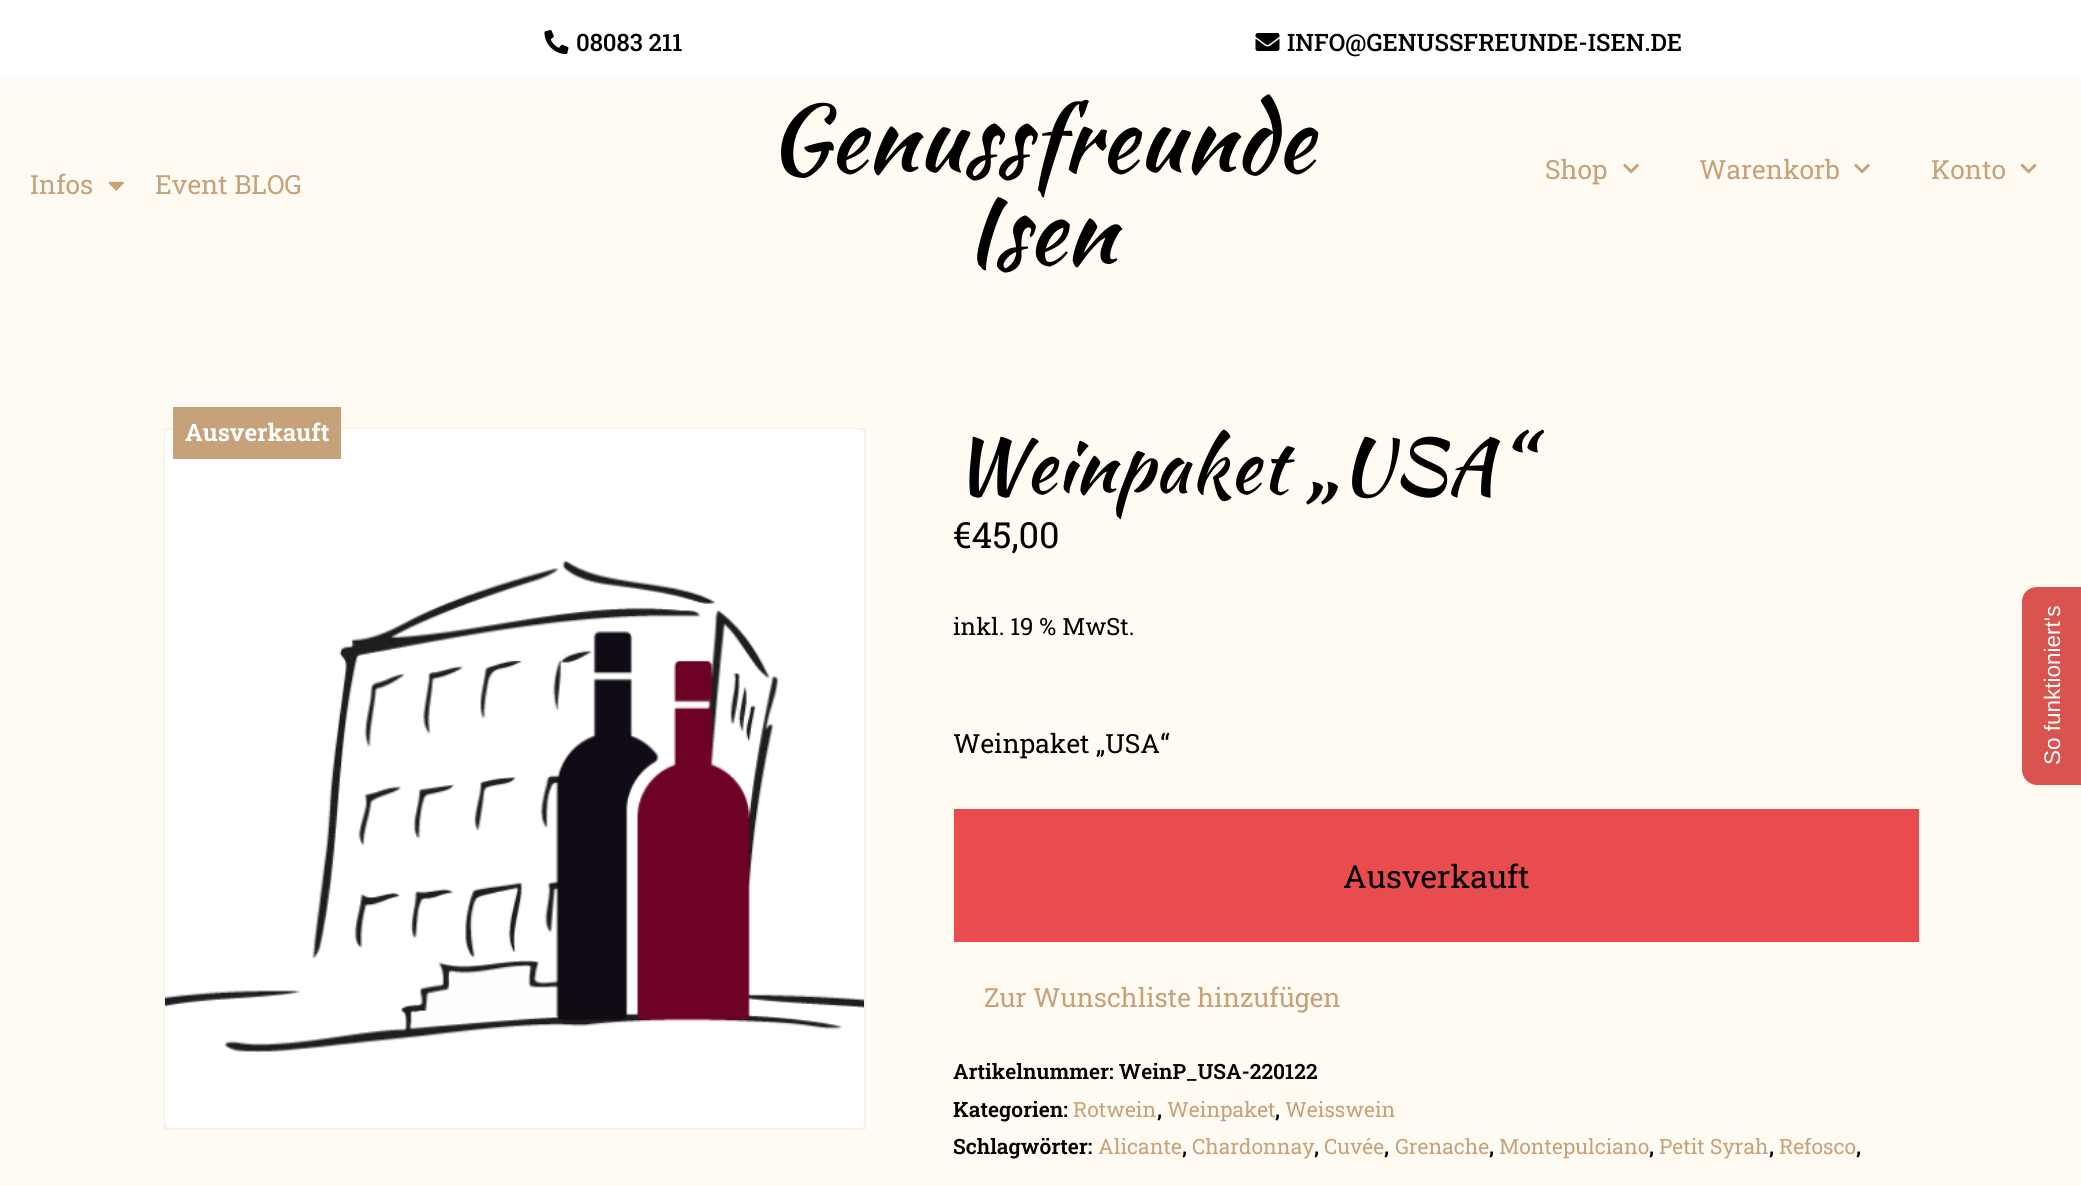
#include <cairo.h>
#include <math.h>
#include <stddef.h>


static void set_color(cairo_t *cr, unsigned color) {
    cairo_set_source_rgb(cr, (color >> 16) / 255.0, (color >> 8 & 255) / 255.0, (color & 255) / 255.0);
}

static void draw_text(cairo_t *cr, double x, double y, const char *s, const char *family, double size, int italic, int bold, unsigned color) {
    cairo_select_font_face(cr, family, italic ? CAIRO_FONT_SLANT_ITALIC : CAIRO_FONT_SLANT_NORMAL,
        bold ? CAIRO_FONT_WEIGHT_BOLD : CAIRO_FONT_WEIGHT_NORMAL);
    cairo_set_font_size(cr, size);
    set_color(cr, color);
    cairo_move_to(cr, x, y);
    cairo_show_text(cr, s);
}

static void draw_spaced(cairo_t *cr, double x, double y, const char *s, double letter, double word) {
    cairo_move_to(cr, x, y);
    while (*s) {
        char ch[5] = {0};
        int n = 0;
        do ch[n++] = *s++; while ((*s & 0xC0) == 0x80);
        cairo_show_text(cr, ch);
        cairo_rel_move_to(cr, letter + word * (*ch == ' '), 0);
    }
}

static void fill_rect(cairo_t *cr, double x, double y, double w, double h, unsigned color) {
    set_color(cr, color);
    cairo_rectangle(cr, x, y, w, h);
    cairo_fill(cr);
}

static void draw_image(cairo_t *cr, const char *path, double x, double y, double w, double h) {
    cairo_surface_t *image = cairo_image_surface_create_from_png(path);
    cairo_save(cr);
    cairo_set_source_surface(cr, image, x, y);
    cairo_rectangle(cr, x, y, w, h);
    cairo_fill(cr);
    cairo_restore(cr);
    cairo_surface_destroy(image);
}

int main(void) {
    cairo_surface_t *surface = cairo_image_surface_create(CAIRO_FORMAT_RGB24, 2081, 1186);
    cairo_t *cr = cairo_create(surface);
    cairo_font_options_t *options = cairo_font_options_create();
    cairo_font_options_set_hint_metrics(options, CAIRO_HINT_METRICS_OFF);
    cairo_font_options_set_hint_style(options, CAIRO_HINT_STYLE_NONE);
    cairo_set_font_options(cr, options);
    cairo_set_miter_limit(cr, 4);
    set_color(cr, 0xFFFBF2);
    cairo_paint(cr);
    fill_rect(cr, 0, 0, 2081, 78, 0xFFFFFF);
    draw_image(cr, "assets/img1.png", 544, 30, 25, 24);
    draw_text(cr, 576, 51, "08083 211", "Roboto Slab Medium", 24, 0, 0, 0x000000);
    draw_image(cr, "assets/img2.png", 1255, 33, 25, 18);
    draw_text(cr, 1287, 51, "INFO@GENUSSFREUNDE-ISEN.DE", "Roboto Slab Medium", 24, 0, 0, 0x000000);
    draw_text(cr, 30, 194, "Infos", "Roboto Slab", 26.4, 0, 0, 0xC7A17A);
    draw_image(cr, "assets/img3.png", 108, 181, 16, 10);
    draw_text(cr, 155, 194, "Event BLOG", "Roboto Slab", 26.4, 0, 0, 0xC7A17A);
    cairo_select_font_face(cr, "Kaushan Script", CAIRO_FONT_SLANT_NORMAL, CAIRO_FONT_WEIGHT_NORMAL);
    cairo_set_font_size(cr, 92.5);
    set_color(cr, 0x000000);
    draw_spaced(cr, 768, 171, "Genussfreunde", 0.75, 0);
    draw_spaced(cr, 965, 263, "Isen", 0.75, 0);
    draw_text(cr, 1545, 179, "Shop", "Roboto Slab", 26.4, 0, 0, 0xC7A17A);
    draw_image(cr, "assets/img4.png", 1623, 163, 16, 11);
    draw_text(cr, 1699, 179, "Warenkorb", "Roboto Slab", 26.4, 0, 0, 0xC7A17A);
    draw_image(cr, "assets/img4.png", 1854, 163, 16, 11);
    draw_text(cr, 1931, 179, "Konto", "Roboto Slab", 26.4, 0, 0, 0xC7A17A);
    draw_image(cr, "assets/img5.png", 2020, 163, 17, 11);
    cairo_rectangle(cr, 165, 429, 700, 700);
    set_color(cr, 0xF2F2F2);
    cairo_stroke(cr);
    draw_image(cr, "assets/img6.png", 165, 429, 699, 699);
    fill_rect(cr, 173, 407, 168, 52, 0xC7A17A);
    draw_text(cr, 185, 441, "Ausverkauft", "Roboto Slab", 24, 0, 1, 0xFFFFFF);
    cairo_select_font_face(cr, "Kaushan Script", CAIRO_FONT_SLANT_NORMAL, CAIRO_FONT_WEIGHT_NORMAL);
    cairo_set_font_size(cr, 75);
    set_color(cr, 0x000000);
    draw_spaced(cr, 953, 492, "Weinpaket „USA“", 0.75, 0);
    draw_text(cr, 953, 548, "€45,00", "Roboto Slab", 36, 0, 0, 0x000000);
    draw_text(cr, 953, 635, "inkl. 19 % MwSt.", "Roboto Slab", 23.75, 0, 0, 0x000000);
    draw_text(cr, 953, 753, "Weinpaket „USA“", "Roboto Slab", 26.4, 0, 0, 0x000000);
    fill_rect(cr, 954, 809, 965, 133, 0xE94C4E);
    draw_text(cr, 1343, 888, "Ausverkauft", "Roboto Slab", 31.75, 0, 0, 0x000000);
    draw_text(cr, 984, 1007, "Zur Wunschliste hinzufügen", "Roboto Slab", 26.4, 0, 0, 0xC7A17A);
    draw_text(cr, 953, 1079, "Artikelnummer: WeinP_USA-220122", "Roboto Slab SemiBold", 21, 0, 0, 0x000000);
    draw_text(cr, 953, 1117, "Kategorien:", "Roboto Slab SemiBold", 21, 0, 0, 0x000000);
    draw_text(cr, 1073, 1117, "Rotwein", "Roboto Slab", 21, 0, 0, 0xC7A17A);
    draw_text(cr, 1157, 1117, ",", "Roboto Slab SemiBold", 21, 0, 0, 0x000000);
    draw_text(cr, 1167, 1117, "Weinpaket", "Roboto Slab", 21, 0, 0, 0xC7A17A);
    draw_text(cr, 1275, 1117, ",", "Roboto Slab SemiBold", 21, 0, 0, 0x000000);
    draw_text(cr, 1285, 1117, "Weisswein", "Roboto Slab", 21, 0, 0, 0xC7A17A);
    draw_text(cr, 953, 1154, "Schlagwörter:", "Roboto Slab SemiBold", 21, 0, 0, 0x000000);
    draw_text(cr, 1098, 1154, "Alicante", "Roboto Slab", 21, 0, 0, 0xC7A17A);
    draw_text(cr, 1182, 1154, ",", "Roboto Slab SemiBold", 21, 0, 0, 0x000000);
    draw_text(cr, 1192, 1154, "Chardonnay", "Roboto Slab", 21, 0, 0, 0xC7A17A);
    draw_text(cr, 1314, 1154, ",", "Roboto Slab SemiBold", 21, 0, 0, 0x000000);
    draw_text(cr, 1324, 1154, "Cuvée", "Roboto Slab", 21, 0, 0, 0xC7A17A);
    draw_text(cr, 1384, 1154, ",", "Roboto Slab SemiBold", 21, 0, 0, 0x000000);
    draw_text(cr, 1395, 1154, "Grenache", "Roboto Slab", 21, 0, 0, 0xC7A17A);
    draw_text(cr, 1489, 1154, ",", "Roboto Slab SemiBold", 21, 0, 0, 0x000000);
    draw_text(cr, 1499, 1154, "Montepulciano", "Roboto Slab", 21, 0, 0, 0xC7A17A);
    draw_text(cr, 1649, 1154, ",", "Roboto Slab SemiBold", 21, 0, 0, 0x000000);
    draw_text(cr, 1659, 1154, "Petit Syrah", "Roboto Slab", 21, 0, 0, 0xC7A17A);
    draw_text(cr, 1769, 1154, ",", "Roboto Slab SemiBold", 21, 0, 0, 0x000000);
    draw_text(cr, 1779, 1154, "Refosco", "Roboto Slab", 21, 0, 0, 0xC7A17A);
    draw_text(cr, 1856, 1154, ",", "Roboto Slab SemiBold", 21, 0, 0, 0x000000);
    set_color(cr, 0xD9534F);
    cairo_new_path(cr);
    cairo_move_to(cr, 2022, 770);
    cairo_line_to(cr, 2022, 602);
    cairo_curve_to(cr, 2022, 593, 2029, 587, 2037, 587);
    cairo_line_to(cr, 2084, 587);
    cairo_line_to(cr, 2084, 785);
    cairo_line_to(cr, 2037, 785);
    cairo_curve_to(cr, 2029, 785, 2022, 778, 2022, 770);
    cairo_close_path(cr);
    cairo_fill(cr);
    cairo_save(cr);
    cairo_translate(cr, 2060, 765);
    cairo_rotate(cr, -90 * M_PI / 180);
    draw_text(cr, 0, 0, "So funktioniert's", "Liberation Sans", 22.5, 0, 0, 0xFFFFFF);
    cairo_restore(cr);
    cairo_surface_write_to_png(surface, "output.png");
    cairo_font_options_destroy(options);
    cairo_destroy(cr);
    cairo_surface_destroy(surface);
    return 0;
}
